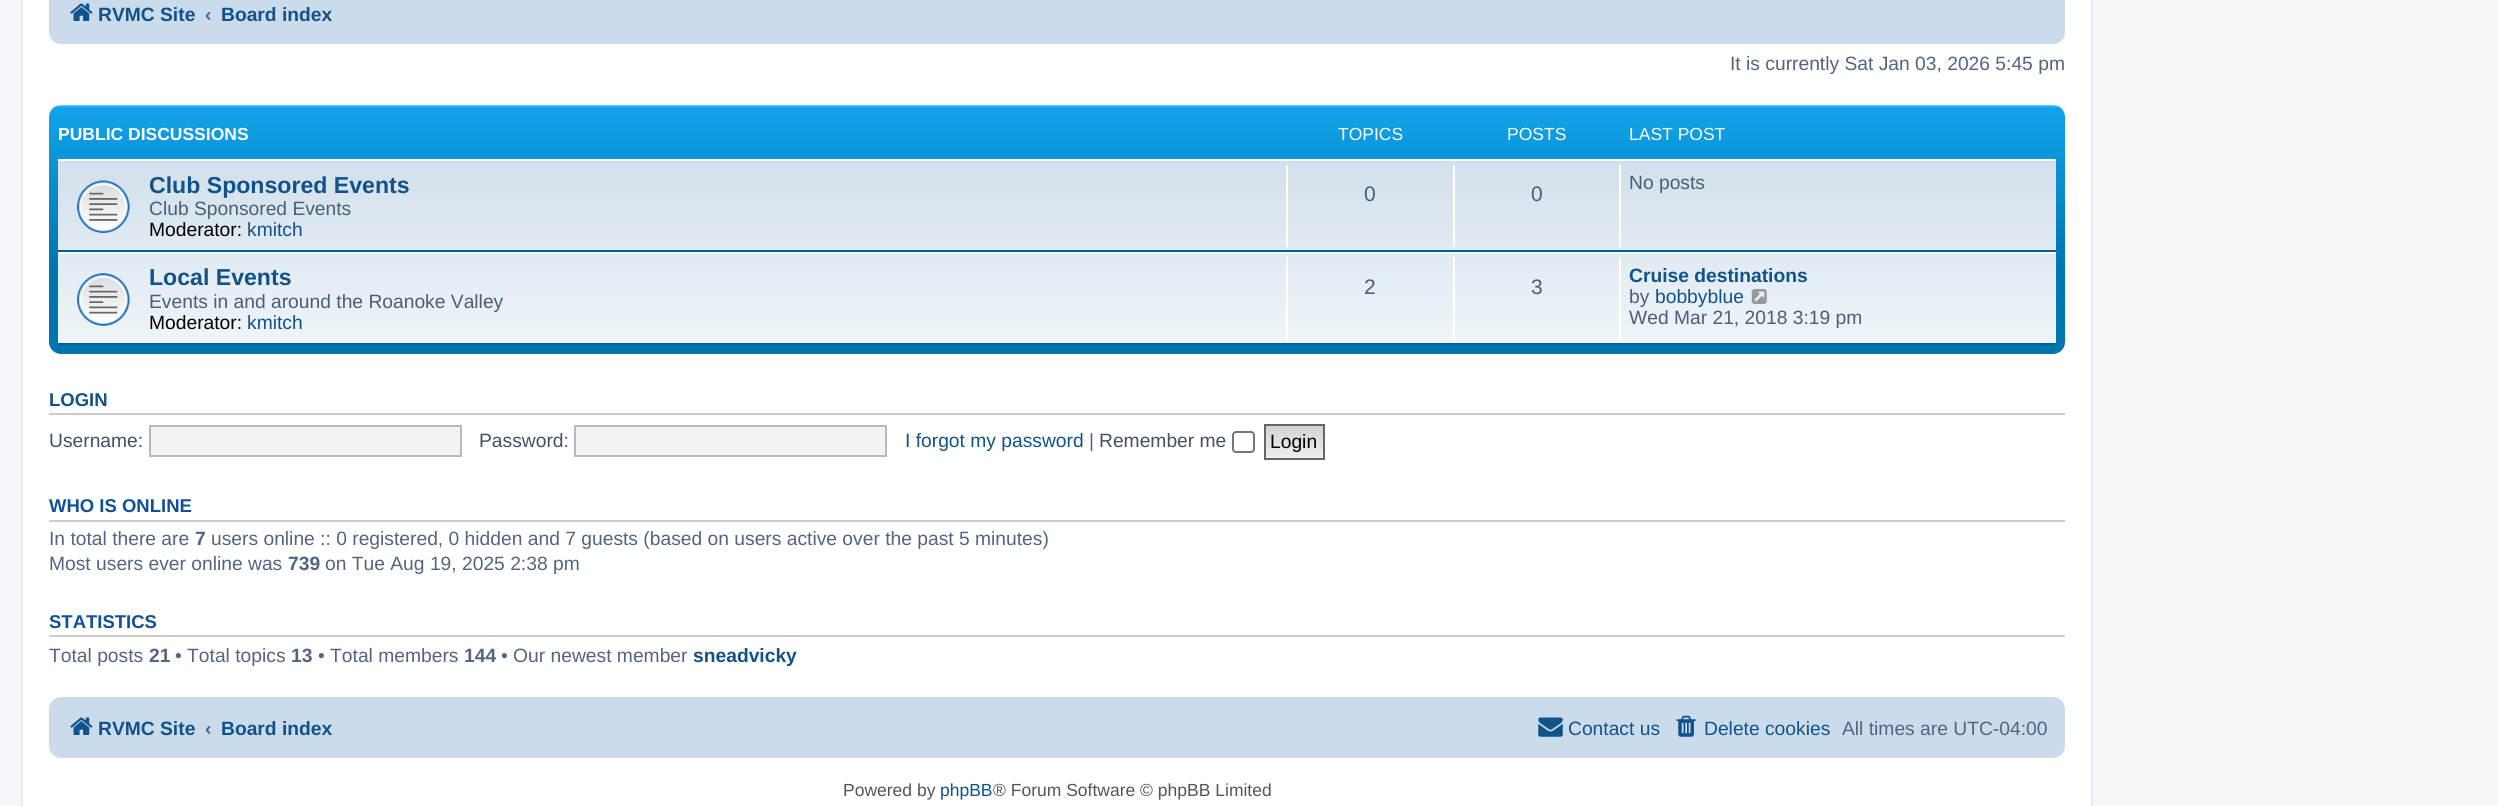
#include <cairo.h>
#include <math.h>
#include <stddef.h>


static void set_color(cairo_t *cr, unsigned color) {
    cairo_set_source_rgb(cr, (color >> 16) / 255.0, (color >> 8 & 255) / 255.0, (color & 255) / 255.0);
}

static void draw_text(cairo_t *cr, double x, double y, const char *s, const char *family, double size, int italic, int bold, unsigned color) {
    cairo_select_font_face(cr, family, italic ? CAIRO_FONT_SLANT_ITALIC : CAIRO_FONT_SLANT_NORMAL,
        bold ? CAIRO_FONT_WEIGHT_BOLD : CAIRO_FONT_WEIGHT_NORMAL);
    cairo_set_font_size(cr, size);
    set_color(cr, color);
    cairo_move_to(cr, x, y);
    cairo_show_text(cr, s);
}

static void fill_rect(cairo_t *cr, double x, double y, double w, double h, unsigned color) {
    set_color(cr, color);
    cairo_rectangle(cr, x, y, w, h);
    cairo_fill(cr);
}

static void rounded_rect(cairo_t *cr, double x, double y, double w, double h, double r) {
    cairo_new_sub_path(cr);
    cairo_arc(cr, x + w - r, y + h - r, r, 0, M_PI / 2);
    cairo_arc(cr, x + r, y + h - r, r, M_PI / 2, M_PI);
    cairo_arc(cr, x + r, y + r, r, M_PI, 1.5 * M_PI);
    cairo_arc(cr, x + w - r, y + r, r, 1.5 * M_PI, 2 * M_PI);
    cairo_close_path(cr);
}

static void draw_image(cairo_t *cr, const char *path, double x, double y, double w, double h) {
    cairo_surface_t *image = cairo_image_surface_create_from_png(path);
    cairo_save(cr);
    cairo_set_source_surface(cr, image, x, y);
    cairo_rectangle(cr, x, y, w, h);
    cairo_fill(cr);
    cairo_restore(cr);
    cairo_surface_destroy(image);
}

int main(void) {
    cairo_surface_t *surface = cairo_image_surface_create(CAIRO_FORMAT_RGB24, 2498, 806);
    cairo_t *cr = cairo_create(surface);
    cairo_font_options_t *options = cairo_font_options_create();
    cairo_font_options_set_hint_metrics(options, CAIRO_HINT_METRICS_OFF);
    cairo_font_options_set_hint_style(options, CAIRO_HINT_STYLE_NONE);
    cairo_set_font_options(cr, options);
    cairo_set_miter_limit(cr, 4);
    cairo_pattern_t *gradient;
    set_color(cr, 0xF5F7FA);
    cairo_paint(cr);
    set_color(cr, 0xFFFFFF);
    cairo_rectangle(cr, 22, -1, 2070, 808);
    cairo_fill_preserve(cr);
    set_color(cr, 0xE6E9ED);
    cairo_stroke(cr);
    set_color(cr, 0xCADCEB);
    rounded_rect(cr, 49, -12, 2016, 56, 12);
    cairo_fill(cr);
    draw_image(cr, "assets/img1.png", 70, 3, 23, 18);
    draw_text(cr, 98, 21, "RVMC Site", "Liberation Sans", 19.25, 0, 1, 0x105289);
    draw_text(cr, 205, 21, "‹", "Liberation Sans", 19.25, 0, 1, 0x536482);
    draw_text(cr, 221, 21, "Board index", "Liberation Sans", 19.25, 0, 1, 0x105289);
    draw_text(cr, 1730, 70, "It is currently Sat Jan 03, 2026 5:45 pm", "Liberation Sans", 19.25, 0, 0, 0x536482);
    gradient = cairo_pattern_create_linear(1057, 105, 1057, 354);
    cairo_pattern_add_color_stop_rgba(gradient, 0, 0.416, 0.808, 1, 1);
    cairo_pattern_add_color_stop_rgba(gradient, 0.01, 0.071, 0.639, 0.922, 1);
    cairo_pattern_add_color_stop_rgba(gradient, 0.65, 0, 0.463, 0.694, 1);
    cairo_pattern_add_color_stop_rgba(gradient, 1, 0, 0.463, 0.694, 1);
    cairo_set_source(cr, gradient);
    cairo_pattern_destroy(gradient);
    rounded_rect(cr, 49, 105, 2016, 249, 12);
    cairo_fill(cr);
    draw_text(cr, 58, 140, "PUBLIC DISCUSSIONS", "Liberation Sans", 17.5, 0, 1, 0xFFFFFF);
    draw_text(cr, 1338, 140, "TOPICS", "Liberation Sans", 17.5, 0, 0, 0xFFFFFF);
    draw_text(cr, 1507, 140, "POSTS", "Liberation Sans", 17.5, 0, 0, 0xFFFFFF);
    draw_text(cr, 1629, 140, "LAST POST", "Liberation Sans", 17.5, 0, 0, 0xFFFFFF);
    gradient = cairo_pattern_create_linear(1057, 159, 1057, 345);
    cairo_pattern_add_color_stop_rgba(gradient, 0, 0.824, 0.878, 0.922, 1);
    cairo_pattern_add_color_stop_rgba(gradient, 1, 0.933, 0.961, 0.976, 1);
    cairo_set_source(cr, gradient);
    cairo_pattern_destroy(gradient);
    cairo_rectangle(cr, 58, 161, 1998, 182);
    cairo_fill(cr);
    fill_rect(cr, 58, 159, 1998, 2, 0xFFFFFF);
    fill_rect(cr, 58, 250, 1998, 2, 0x00608F);
    draw_image(cr, "assets/img2.png", 77, 180, 53, 53);
    draw_text(cr, 149, 193, "Club Sponsored Events", "Liberation Sans", 23.1, 0, 1, 0x105289);
    draw_text(cr, 149, 215, "Club Sponsored Events", "Liberation Sans", 19.25, 0, 0, 0x4C5D77);
    draw_text(cr, 149, 236, "Moderator:", "Liberation Sans", 19.25, 0, 0, 0x000000);
    draw_text(cr, 247, 236, "kmitch", "Liberation Sans", 19.25, 0, 0, 0x105289);
    fill_rect(cr, 1286, 165, 2, 82, 0xFFFFFF);
    draw_text(cr, 1364, 201, "0", "Liberation Sans", 21, 0, 0, 0x4C5D77);
    fill_rect(cr, 1453, 165, 2, 82, 0xFFFFFF);
    draw_text(cr, 1531, 201, "0", "Liberation Sans", 21, 0, 0, 0x4C5D77);
    fill_rect(cr, 1619, 165, 2, 82, 0xFFFFFF);
    draw_text(cr, 1629, 189, "No posts", "Liberation Sans", 19.25, 0, 0, 0x4C5D77);
    fill_rect(cr, 58, 252, 1998, 2, 0xFFFFFF);
    fill_rect(cr, 58, 343, 1998, 2, 0x00608F);
    draw_image(cr, "assets/img3.png", 77, 273, 53, 53);
    draw_text(cr, 149, 285, "Local Events", "Liberation Sans", 23.1, 0, 1, 0x105289);
    draw_text(cr, 149, 308, "Events in and around the Roanoke Valley", "Liberation Sans", 19.25, 0, 0, 0x4C5D77);
    draw_text(cr, 149, 329, "Moderator:", "Liberation Sans", 19.25, 0, 0, 0x000000);
    draw_text(cr, 247, 329, "kmitch", "Liberation Sans", 19.25, 0, 0, 0x105289);
    fill_rect(cr, 1286, 257, 2, 83, 0xFFFFFF);
    draw_text(cr, 1364, 294, "2", "Liberation Sans", 21, 0, 0, 0x4C5D77);
    fill_rect(cr, 1453, 257, 2, 83, 0xFFFFFF);
    draw_text(cr, 1531, 294, "3", "Liberation Sans", 21, 0, 0, 0x4C5D77);
    fill_rect(cr, 1619, 257, 2, 83, 0xFFFFFF);
    draw_text(cr, 1629, 282, "Cruise destinations", "Liberation Sans", 19.25, 0, 1, 0x105289);
    draw_text(cr, 1629, 303, "by", "Liberation Sans", 19.25, 0, 0, 0x4C5D77);
    draw_text(cr, 1655, 303, "bobbyblue", "Liberation Sans", 19.25, 0, 0, 0x105289);
    draw_image(cr, "assets/img4.png", 1751, 289, 16, 15);
    draw_text(cr, 1629, 324, "Wed Mar 21, 2018 3:19 pm", "Liberation Sans", 19.25, 0, 0, 0x4C5D77);
    fill_rect(cr, 49, 413, 2016, 2, 0xCCCCCC);
    draw_text(cr, 49, 406, "LOGIN", "Liberation Sans", 18.5, 0, 1, 0x105289);
    draw_text(cr, 49, 447, "Username:", "Liberation Sans", 19.25, 0, 0, 0x425067);
    set_color(cr, 0xF2F3F3);
    cairo_rectangle(cr, 150, 426, 311, 30);
    cairo_fill_preserve(cr);
    set_color(cr, 0xB4BAC0);
    cairo_stroke(cr);
    draw_text(cr, 479, 447, "Password:", "Liberation Sans", 19.25, 0, 0, 0x425067);
    set_color(cr, 0xF2F3F3);
    cairo_rectangle(cr, 575, 426, 311, 30);
    cairo_fill_preserve(cr);
    set_color(cr, 0xB4BAC0);
    cairo_stroke(cr);
    draw_text(cr, 905, 447, "I forgot my password", "Liberation Sans", 19.25, 0, 0, 0x105289);
    draw_text(cr, 1089, 447, "|", "Liberation Sans", 19.25, 0, 0, 0x536482);
    draw_text(cr, 1099, 447, "Remember me", "Liberation Sans", 19.25, 0, 0, 0x425067);
    rounded_rect(cr, 1233, 432, 21, 20, 3);
    set_color(cr, 0x767676);
    cairo_stroke(cr);
    gradient = cairo_pattern_create_linear(1294, 425, 1294, 459);
    cairo_pattern_add_color_stop_rgba(gradient, 0, 0.824, 0.824, 0.824, 1);
    cairo_pattern_add_color_stop_rgba(gradient, 1, 0.937, 0.937, 0.937, 1);
    cairo_set_source(cr, gradient);
    cairo_pattern_destroy(gradient);
    cairo_rectangle(cr, 1266, 426, 57, 32);
    cairo_fill(cr);
    cairo_rectangle(cr, 1265, 425, 59, 34);
    set_color(cr, 0x666666);
    cairo_stroke(cr);
    draw_text(cr, 1270, 448, "Login", "Liberation Sans", 19.25, 0, 0, 0x000000);
    fill_rect(cr, 49, 520, 2016, 2, 0xCCCCCC);
    draw_text(cr, 49, 512, "WHO IS ONLINE", "Liberation Sans", 18.5, 0, 1, 0x115098);
    draw_text(cr, 49, 545, "In total there are", "Liberation Sans", 19.25, 0, 0, 0x536482);
    draw_text(cr, 195, 545, "7", "Liberation Sans", 19.25, 0, 1, 0x536482);
    draw_text(cr, 211, 545, "users online :: 0 registered, 0 hidden and 7 guests (based on users active over the past 5 minutes)", "Liberation Sans", 19.25, 0, 0, 0x536482);
    draw_text(cr, 49, 570, "Most users ever online was", "Liberation Sans", 19.25, 0, 0, 0x536482);
    draw_text(cr, 288, 570, "739", "Liberation Sans", 19.25, 0, 1, 0x536482);
    draw_text(cr, 325, 570, "on Tue Aug 19, 2025 2:38 pm", "Liberation Sans", 19.25, 0, 0, 0x536482);
    fill_rect(cr, 49, 635, 2016, 2, 0xCCCCCC);
    draw_text(cr, 49, 628, "STATISTICS", "Liberation Sans", 18.5, 0, 1, 0x115098);
    draw_text(cr, 49, 662, "Total posts", "Liberation Sans", 19.25, 0, 0, 0x536482);
    draw_text(cr, 149, 662, "21", "Liberation Sans", 19.25, 0, 1, 0x536482);
    draw_text(cr, 175, 662, "• Total topics", "Liberation Sans", 19.25, 0, 0, 0x536482);
    draw_text(cr, 291, 662, "13", "Liberation Sans", 19.25, 0, 1, 0x536482);
    draw_text(cr, 318, 662, "• Total members", "Liberation Sans", 19.25, 0, 0, 0x536482);
    draw_text(cr, 464, 662, "144", "Liberation Sans", 19.25, 0, 1, 0x536482);
    draw_text(cr, 501, 662, "• Our newest member", "Liberation Sans", 19.25, 0, 0, 0x536482);
    draw_text(cr, 693, 662, "sneadvicky", "Liberation Sans", 19.25, 0, 1, 0x105289);
    set_color(cr, 0xCADCEB);
    rounded_rect(cr, 49, 697, 2016, 61, 12);
    cairo_fill(cr);
    draw_image(cr, "assets/img1.png", 70, 717, 23, 18);
    draw_text(cr, 98, 735, "RVMC Site", "Liberation Sans", 19.25, 0, 1, 0x105289);
    draw_text(cr, 205, 735, "‹", "Liberation Sans", 19.25, 0, 1, 0x536482);
    draw_text(cr, 221, 735, "Board index", "Liberation Sans", 19.25, 0, 1, 0x105289);
    draw_image(cr, "assets/img5.png", 1538, 717, 25, 20);
    draw_text(cr, 1568, 735, "Contact us", "Liberation Sans", 19.25, 0, 0, 0x105289);
    draw_image(cr, "assets/img6.png", 1676, 715, 20, 22);
    draw_text(cr, 1704, 735, "Delete cookies", "Liberation Sans", 19.25, 0, 0, 0x105289);
    draw_text(cr, 1842, 735, "All times are UTC-04:00", "Liberation Sans", 19.25, 0, 0, 0x536482);
    draw_text(cr, 843, 796, "Powered by", "Liberation Sans", 17.5, 0, 0, 0x555555);
    draw_text(cr, 940, 796, "phpBB", "Liberation Sans", 17.5, 0, 0, 0x105289);
    draw_text(cr, 993, 796, "® Forum Software © phpBB Limited", "Liberation Sans", 17.5, 0, 0, 0x555555);
    cairo_surface_write_to_png(surface, "output.png");
    cairo_font_options_destroy(options);
    cairo_destroy(cr);
    cairo_surface_destroy(surface);
    return 0;
}
